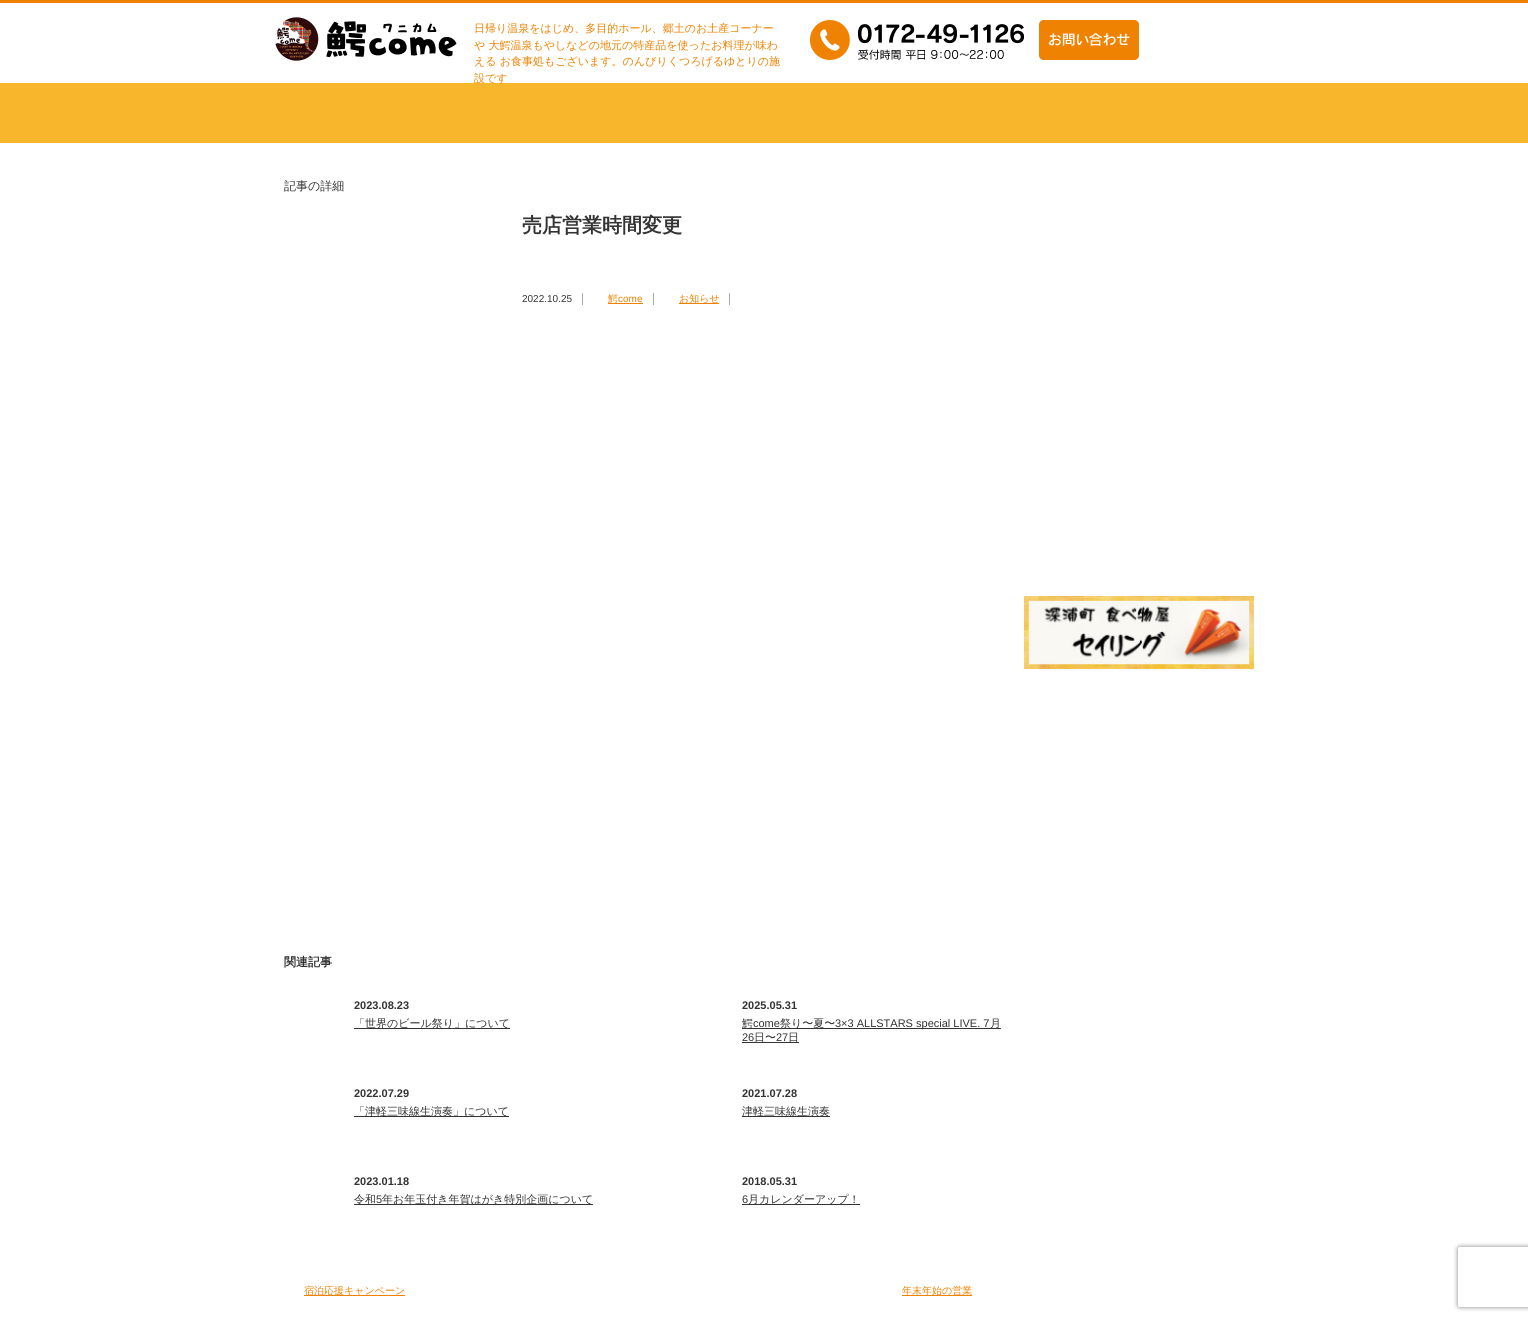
#include <cairo.h>
#include <math.h>
#include <stddef.h>


static void set_color(cairo_t *cr, unsigned color) {
    cairo_set_source_rgb(cr, (color >> 16) / 255.0, (color >> 8 & 255) / 255.0, (color & 255) / 255.0);
}

static void draw_text(cairo_t *cr, double x, double y, const char *s, const char *family, double size, int italic, int bold, unsigned color) {
    cairo_select_font_face(cr, family, italic ? CAIRO_FONT_SLANT_ITALIC : CAIRO_FONT_SLANT_NORMAL,
        bold ? CAIRO_FONT_WEIGHT_BOLD : CAIRO_FONT_WEIGHT_NORMAL);
    cairo_set_font_size(cr, size);
    set_color(cr, color);
    cairo_move_to(cr, x, y);
    cairo_show_text(cr, s);
}

static void fill_rect(cairo_t *cr, double x, double y, double w, double h, unsigned color) {
    set_color(cr, color);
    cairo_rectangle(cr, x, y, w, h);
    cairo_fill(cr);
}

static void rounded_rect(cairo_t *cr, double x, double y, double w, double h, double r) {
    cairo_new_sub_path(cr);
    cairo_arc(cr, x + w - r, y + h - r, r, 0, M_PI / 2);
    cairo_arc(cr, x + r, y + h - r, r, M_PI / 2, M_PI);
    cairo_arc(cr, x + r, y + r, r, M_PI, 1.5 * M_PI);
    cairo_arc(cr, x + w - r, y + r, r, 1.5 * M_PI, 2 * M_PI);
    cairo_close_path(cr);
}

static void draw_shadow(cairo_t *cr, double x, double y, double w, double h, double r, double blur, double alpha) {
    cairo_push_group_with_content(cr, CAIRO_CONTENT_ALPHA);
    cairo_set_operator(cr, CAIRO_OPERATOR_SOURCE);
    for (int i = 15; i >= -15 && fmin(w, h) + blur * i / 3 > 0; i -= 2) {
        double e = blur * i / 6;
        cairo_set_source_rgba(cr, 0, 0, 0, alpha * erfc((i - 1) / 8.5) / 2);
        rounded_rect(cr, x - e, y - e, w + 2 * e, h + 2 * e, fmax(0, fmin(r + e + blur * .6, fmin(w, h) / 2 + e)));
        cairo_fill(cr);
    }
    cairo_pattern_t *soft = cairo_pop_group(cr);
    cairo_mask(cr, soft);
    cairo_pattern_destroy(soft);
}

static void draw_image(cairo_t *cr, const char *path, double x, double y, double w, double h) {
    cairo_surface_t *image = cairo_image_surface_create_from_png(path);
    cairo_save(cr);
    cairo_set_source_surface(cr, image, x, y);
    cairo_rectangle(cr, x, y, w, h);
    cairo_fill(cr);
    cairo_restore(cr);
    cairo_surface_destroy(image);
}

int main(void) {
    cairo_surface_t *surface = cairo_image_surface_create(CAIRO_FORMAT_RGB24, 1528, 1321);
    cairo_t *cr = cairo_create(surface);
    cairo_font_options_t *options = cairo_font_options_create();
    cairo_font_options_set_hint_metrics(options, CAIRO_HINT_METRICS_OFF);
    cairo_font_options_set_hint_style(options, CAIRO_HINT_STYLE_NONE);
    cairo_set_font_options(cr, options);
    cairo_set_miter_limit(cr, 4);
    set_color(cr, 0xFFFFFF);
    cairo_paint(cr);
    fill_rect(cr, 0, 0, 1528, 3, 0xEF8200);
    draw_image(cr, "assets/img1.png", 275, 17, 182, 44);
    draw_text(cr, 474, 32, "日帰り温泉をはじめ、多目的ホール、郷土のお土産コーナー", "WenQuanYi Zen Hei Medium", 11, 0, 0, 0xEF8200);
    draw_text(cr, 474, 49, "や 大鰐温泉もやしなどの地元の特産品を使ったお料理が味わ", "WenQuanYi Zen Hei Medium", 11, 0, 0, 0xEF8200);
    draw_text(cr, 474, 65, "える お食事処もございます。のんびりくつろげるゆとりの施", "WenQuanYi Zen Hei Medium", 11, 0, 0, 0xEF8200);
    fill_rect(cr, 0, 83, 1528, 60, 0xF8B62D);
    draw_text(cr, 474, 82, "設です", "WenQuanYi Zen Hei Medium", 11, 0, 0, 0xEF8200);
    draw_image(cr, "assets/img2.png", 810, 20, 214, 40);
    draw_image(cr, "assets/img3.png", 1039, 20, 100, 40);
    draw_text(cr, 284, 190, "記事の詳細", "WenQuanYi Zen Hei Medium", 12, 0, 0, 0x333333);
    draw_text(cr, 522, 232, "売店営業時間変更", "WenQuanYi Zen Hei", 20, 0, 1, 0x333333);
    fill_rect(cr, 582, 293, 1, 12, 0xAAAAAA);
    draw_text(cr, 522, 302, "2022.10.25", "Liberation Sans", 10, 0, 0, 0x333333);
    fill_rect(cr, 653, 293, 1, 12, 0xAAAAAA);
    fill_rect(cr, 608, 303, 35, 1, 0xEF8200);
    draw_text(cr, 608, 302, "鰐", "WenQuanYi Zen Hei Medium", 10, 0, 0, 0xEF8200);
    draw_text(cr, 618, 302, "come", "Liberation Sans", 10, 0, 0, 0xEF8200);
    fill_rect(cr, 729, 293, 1, 12, 0xAAAAAA);
    fill_rect(cr, 679, 303, 40, 1, 0xEF8200);
    draw_text(cr, 679, 302, "お知らせ", "WenQuanYi Zen Hei Medium", 10, 0, 0, 0xEF8200);
    draw_text(cr, 284, 966, "関連記事", "WenQuanYi Zen Hei", 12, 0, 1, 0x333333);
    draw_text(cr, 354, 1009, "2023.08.23", "Liberation Sans", 11, 0, 1, 0x333333);
    fill_rect(cr, 354, 1028, 156, 1, 0x333333);
    draw_text(cr, 354, 1027, "「世界のビール祭り」について", "WenQuanYi Zen Hei Medium", 11, 0, 0, 0x333333);
    draw_text(cr, 742, 1009, "2025.05.31", "Liberation Sans", 11, 0, 1, 0x333333);
    fill_rect(cr, 742, 1028, 259, 1, 0x333333);
    draw_text(cr, 742, 1027, "鰐", "WenQuanYi Zen Hei Medium", 11, 0, 0, 0x333333);
    draw_text(cr, 753, 1027, "come", "Liberation Sans", 11, 0, 0, 0x333333);
    draw_text(cr, 780, 1027, "祭り〜夏〜", "WenQuanYi Zen Hei Medium", 11, 0, 0, 0x333333);
    draw_text(cr, 835, 1027, "3×3 ALLSTARS special LIVE. 7", "Liberation Sans", 11, 0, 0, 0x333333);
    draw_text(cr, 990, 1027, "月", "WenQuanYi Zen Hei Medium", 11, 0, 0, 0x333333);
    draw_text(cr, 742, 1041, "26", "Liberation Sans", 11, 0, 0, 0x333333);
    fill_rect(cr, 742, 1042, 57, 1, 0x333333);
    draw_text(cr, 754, 1041, "日〜", "WenQuanYi Zen Hei Medium", 11, 0, 0, 0x333333);
    draw_text(cr, 776, 1041, "27", "Liberation Sans", 11, 0, 0, 0x333333);
    draw_text(cr, 788, 1041, "日", "WenQuanYi Zen Hei Medium", 11, 0, 0, 0x333333);
    draw_text(cr, 354, 1097, "2022.07.29", "Liberation Sans", 11, 0, 1, 0x333333);
    fill_rect(cr, 354, 1116, 155, 1, 0x333333);
    draw_text(cr, 354, 1115, "「津軽三味線生演奏」について", "WenQuanYi Zen Hei Medium", 11, 0, 0, 0x333333);
    draw_text(cr, 742, 1097, "2021.07.28", "Liberation Sans", 11, 0, 1, 0x333333);
    fill_rect(cr, 742, 1116, 88, 1, 0x333333);
    draw_text(cr, 742, 1115, "津軽三味線生演奏", "WenQuanYi Zen Hei Medium", 11, 0, 0, 0x333333);
    draw_text(cr, 354, 1185, "2023.01.18", "Liberation Sans", 11, 0, 1, 0x333333);
    fill_rect(cr, 354, 1204, 239, 1, 0x333333);
    draw_text(cr, 354, 1203, "令和", "WenQuanYi Zen Hei Medium", 11, 0, 0, 0x333333);
    draw_text(cr, 376, 1203, "5", "Liberation Sans", 11, 0, 0, 0x333333);
    draw_text(cr, 382, 1203, "年お年玉付き年賀はがき特別企画について", "WenQuanYi Zen Hei Medium", 11, 0, 0, 0x333333);
    draw_text(cr, 742, 1185, "2018.05.31", "Liberation Sans", 11, 0, 1, 0x333333);
    draw_text(cr, 742, 1203, "6", "Liberation Sans", 11, 0, 0, 0x333333);
    fill_rect(cr, 742, 1204, 118, 1, 0x333333);
    draw_text(cr, 748, 1203, "月カレンダーアップ！", "WenQuanYi Zen Hei Medium", 11, 0, 0, 0x333333);
    fill_rect(cr, 304, 1295, 101, 1, 0xEF8200);
    draw_text(cr, 304, 1294, "宿泊応援キャンペーン", "WenQuanYi Zen Hei Medium", 10, 0, 0, 0xEF8200);
    fill_rect(cr, 902, 1295, 70, 1, 0xEF8200);
    draw_text(cr, 902, 1294, "年末年始の営業", "WenQuanYi Zen Hei Medium", 10, 0, 0, 0xEF8200);
    draw_image(cr, "assets/img4.png", 1024, 596, 230, 73);
    cairo_save(cr);
    cairo_set_fill_rule(cr, CAIRO_FILL_RULE_EVEN_ODD);
    cairo_new_path(cr);
    cairo_move_to(cr, 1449, 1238);
    cairo_line_to(cr, 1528, 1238);
    cairo_line_to(cr, 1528, 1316);
    cairo_line_to(cr, 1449, 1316);
    cairo_close_path(cr);
    cairo_move_to(cr, 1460, 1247);
    cairo_line_to(cr, 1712, 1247);
    cairo_curve_to(cr, 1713, 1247, 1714, 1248, 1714, 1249);
    cairo_line_to(cr, 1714, 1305);
    cairo_curve_to(cr, 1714, 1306, 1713, 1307, 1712, 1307);
    cairo_line_to(cr, 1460, 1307);
    cairo_curve_to(cr, 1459, 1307, 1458, 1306, 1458, 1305);
    cairo_line_to(cr, 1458, 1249);
    cairo_curve_to(cr, 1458, 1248, 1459, 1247, 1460, 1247);
    cairo_close_path(cr);
    cairo_clip(cr);
    set_color(cr, 0x808080);
    draw_shadow(cr, 1458, 1247, 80, 60, 2, 2.5, 1);
    cairo_restore(cr);
    cairo_surface_write_to_png(surface, "output.png");
    cairo_font_options_destroy(options);
    cairo_destroy(cr);
    cairo_surface_destroy(surface);
    return 0;
}
